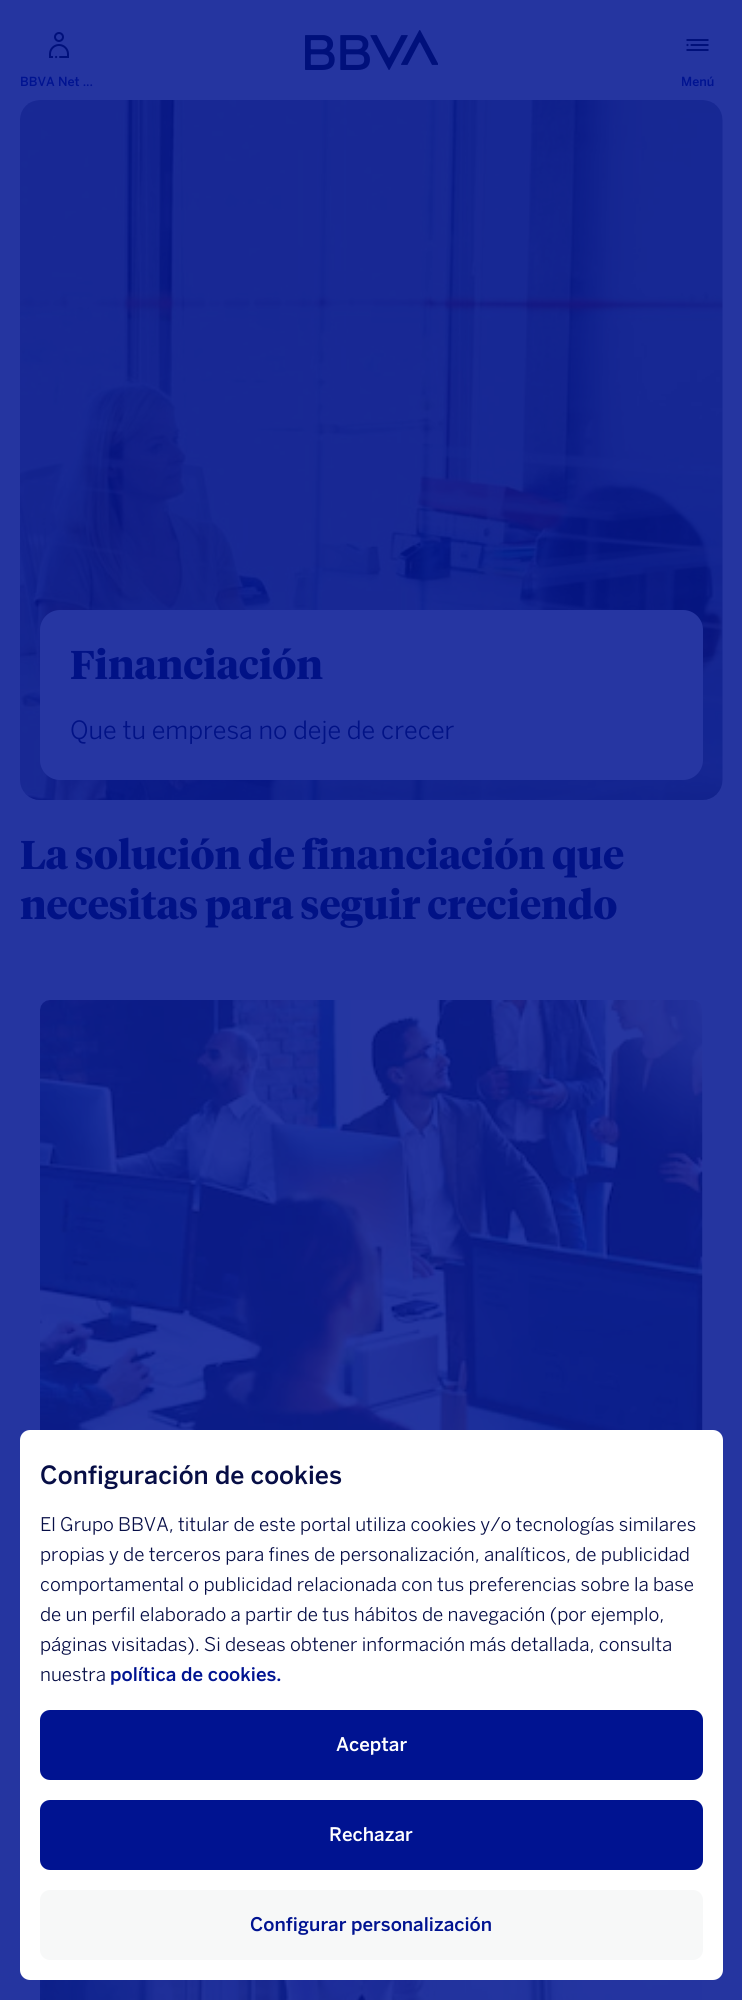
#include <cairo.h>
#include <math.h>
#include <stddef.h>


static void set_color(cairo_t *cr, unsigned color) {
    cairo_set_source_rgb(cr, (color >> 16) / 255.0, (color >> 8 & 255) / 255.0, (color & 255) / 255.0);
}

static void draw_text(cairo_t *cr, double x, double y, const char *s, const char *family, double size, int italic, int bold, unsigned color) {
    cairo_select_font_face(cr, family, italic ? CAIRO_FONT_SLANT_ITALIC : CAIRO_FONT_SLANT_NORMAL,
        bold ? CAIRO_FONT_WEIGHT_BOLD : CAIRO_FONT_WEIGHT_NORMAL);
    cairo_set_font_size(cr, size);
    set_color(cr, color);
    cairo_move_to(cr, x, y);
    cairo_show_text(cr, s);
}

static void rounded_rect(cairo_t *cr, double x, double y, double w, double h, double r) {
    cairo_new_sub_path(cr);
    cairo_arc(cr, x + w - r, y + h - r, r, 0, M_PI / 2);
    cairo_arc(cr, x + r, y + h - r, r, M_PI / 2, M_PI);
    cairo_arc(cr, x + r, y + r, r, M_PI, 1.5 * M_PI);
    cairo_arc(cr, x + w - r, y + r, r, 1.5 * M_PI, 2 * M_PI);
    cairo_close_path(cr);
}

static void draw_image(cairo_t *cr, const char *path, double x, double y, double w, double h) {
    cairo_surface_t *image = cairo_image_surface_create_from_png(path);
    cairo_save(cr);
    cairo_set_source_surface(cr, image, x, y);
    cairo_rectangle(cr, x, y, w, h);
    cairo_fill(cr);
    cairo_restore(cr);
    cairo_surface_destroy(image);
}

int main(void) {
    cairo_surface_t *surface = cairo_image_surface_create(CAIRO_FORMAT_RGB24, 742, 2000);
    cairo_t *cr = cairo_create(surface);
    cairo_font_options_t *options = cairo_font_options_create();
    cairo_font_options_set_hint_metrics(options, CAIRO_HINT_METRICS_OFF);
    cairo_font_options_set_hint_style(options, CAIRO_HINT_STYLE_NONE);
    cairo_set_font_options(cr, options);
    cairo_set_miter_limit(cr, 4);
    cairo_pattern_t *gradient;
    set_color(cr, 0x2535A0);
    cairo_paint(cr);
    draw_image(cr, "assets/img1.png", 305, 30, 133, 40);
    draw_image(cr, "assets/img2.png", 49, 32, 20, 27);
    draw_text(cr, 20, 86, "BBVA Net ...", "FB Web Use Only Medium", 12.5, 0, 0, 0x001391);
    draw_image(cr, "assets/img3.png", 686, 39, 23, 12);
    draw_text(cr, 681, 86, "Menú", "FB Web Use Only Medium", 12.5, 0, 0, 0x001391);
    set_color(cr, 0xFFFFFF);
    rounded_rect(cr, 20, 1430, 703, 550, 10);
    cairo_fill(cr);
    draw_text(cr, 40, 1484, "Configuración de cookies", "FB Web Use Only Medium", 25, 0, 0, 0x070E46);
    draw_text(cr, 40, 1531, "El Grupo BBVA, titular de este portal utiliza cookies y/o tecnologías similares", "FB Web Use Only Light", 18.75, 0, 0, 0x070E46);
    draw_text(cr, 40, 1561, "propias y de terceros para fines de personalización, analíticos, de publicidad", "FB Web Use Only Light", 18.75, 0, 0, 0x070E46);
    draw_text(cr, 40, 1591, "comportamental o publicidad relacionada con tus preferencias sobre la base", "FB Web Use Only Light", 18.75, 0, 0, 0x070E46);
    draw_text(cr, 40, 1621, "de un perfil elaborado a partir de tus hábitos de navegación (por ejemplo,", "FB Web Use Only Light", 18.75, 0, 0, 0x070E46);
    draw_text(cr, 40, 1651, "páginas visitadas). Si deseas obtener información más detallada, consulta", "FB Web Use Only Light", 18.75, 0, 0, 0x070E46);
    draw_text(cr, 40, 1681, "nuestra", "FB Web Use Only Light", 18.75, 0, 0, 0x070E46);
    draw_text(cr, 110, 1681, "política de cookies.", "FB Web Use Only Medium", 18.75, 0, 0, 0x001391);
    gradient = cairo_pattern_create_linear(-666, 1625, 695, 1865);
    cairo_pattern_add_color_stop_rgba(gradient, 0.5, 0.027, 0.055, 0.275, 1);
    cairo_pattern_add_color_stop_rgba(gradient, 0.5, 0, 0.075, 0.569, 1);
    cairo_set_source(cr, gradient);
    cairo_pattern_destroy(gradient);
    rounded_rect(cr, 40, 1710, 663, 70, 10);
    cairo_fill(cr);
    draw_text(cr, 336, 1751, "Aceptar", "FB Web Use Only Medium", 18.75, 0, 0, 0xFFFFFF);
    gradient = cairo_pattern_create_linear(-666, 1715, 695, 1955);
    cairo_pattern_add_color_stop_rgba(gradient, 0.5, 0.027, 0.055, 0.275, 1);
    cairo_pattern_add_color_stop_rgba(gradient, 0.5, 0, 0.075, 0.569, 1);
    cairo_set_source(cr, gradient);
    cairo_pattern_destroy(gradient);
    rounded_rect(cr, 40, 1800, 663, 70, 10);
    cairo_fill(cr);
    draw_text(cr, 329, 1841, "Rechazar", "FB Web Use Only Medium", 18.75, 0, 0, 0xFFFFFF);
    gradient = cairo_pattern_create_linear(-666, 1805, 695, 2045);
    cairo_pattern_add_color_stop_rgba(gradient, 0.5, 1, 1, 1, 1);
    cairo_pattern_add_color_stop_rgba(gradient, 0.5, 0.969, 0.973, 0.973, 1);
    cairo_set_source(cr, gradient);
    cairo_pattern_destroy(gradient);
    rounded_rect(cr, 40, 1890, 663, 70, 10);
    cairo_fill(cr);
    draw_text(cr, 250, 1931, "Configurar personalización", "FB Web Use Only Medium", 18.75, 0, 0, 0x001391);
    draw_image(cr, "assets/img4.png", 20, 100, 703, 700);
    set_color(cr, 0x2636A2);
    rounded_rect(cr, 40, 610, 663, 170, 20);
    cairo_fill(cr);
    draw_text(cr, 70, 679, "Financiación", "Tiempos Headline", 40, 0, 1, 0x011286);
    draw_text(cr, 70, 739, "Que tu empresa no deje de crecer", "FB Web Use Only Light", 25, 0, 0, 0x011286);
    draw_text(cr, 20, 869, "La solución de financiación que", "Tiempos Headline", 40, 0, 1, 0x011286);
    draw_text(cr, 20, 919, "necesitas para seguir creciendo", "Tiempos Headline", 40, 0, 1, 0x011286);
    draw_image(cr, "assets/img5.png", 40, 1000, 663, 430);
    draw_image(cr, "assets/img6.png", 40, 1980, 663, 20);
    cairo_surface_write_to_png(surface, "output.png");
    cairo_font_options_destroy(options);
    cairo_destroy(cr);
    cairo_surface_destroy(surface);
    return 0;
}
